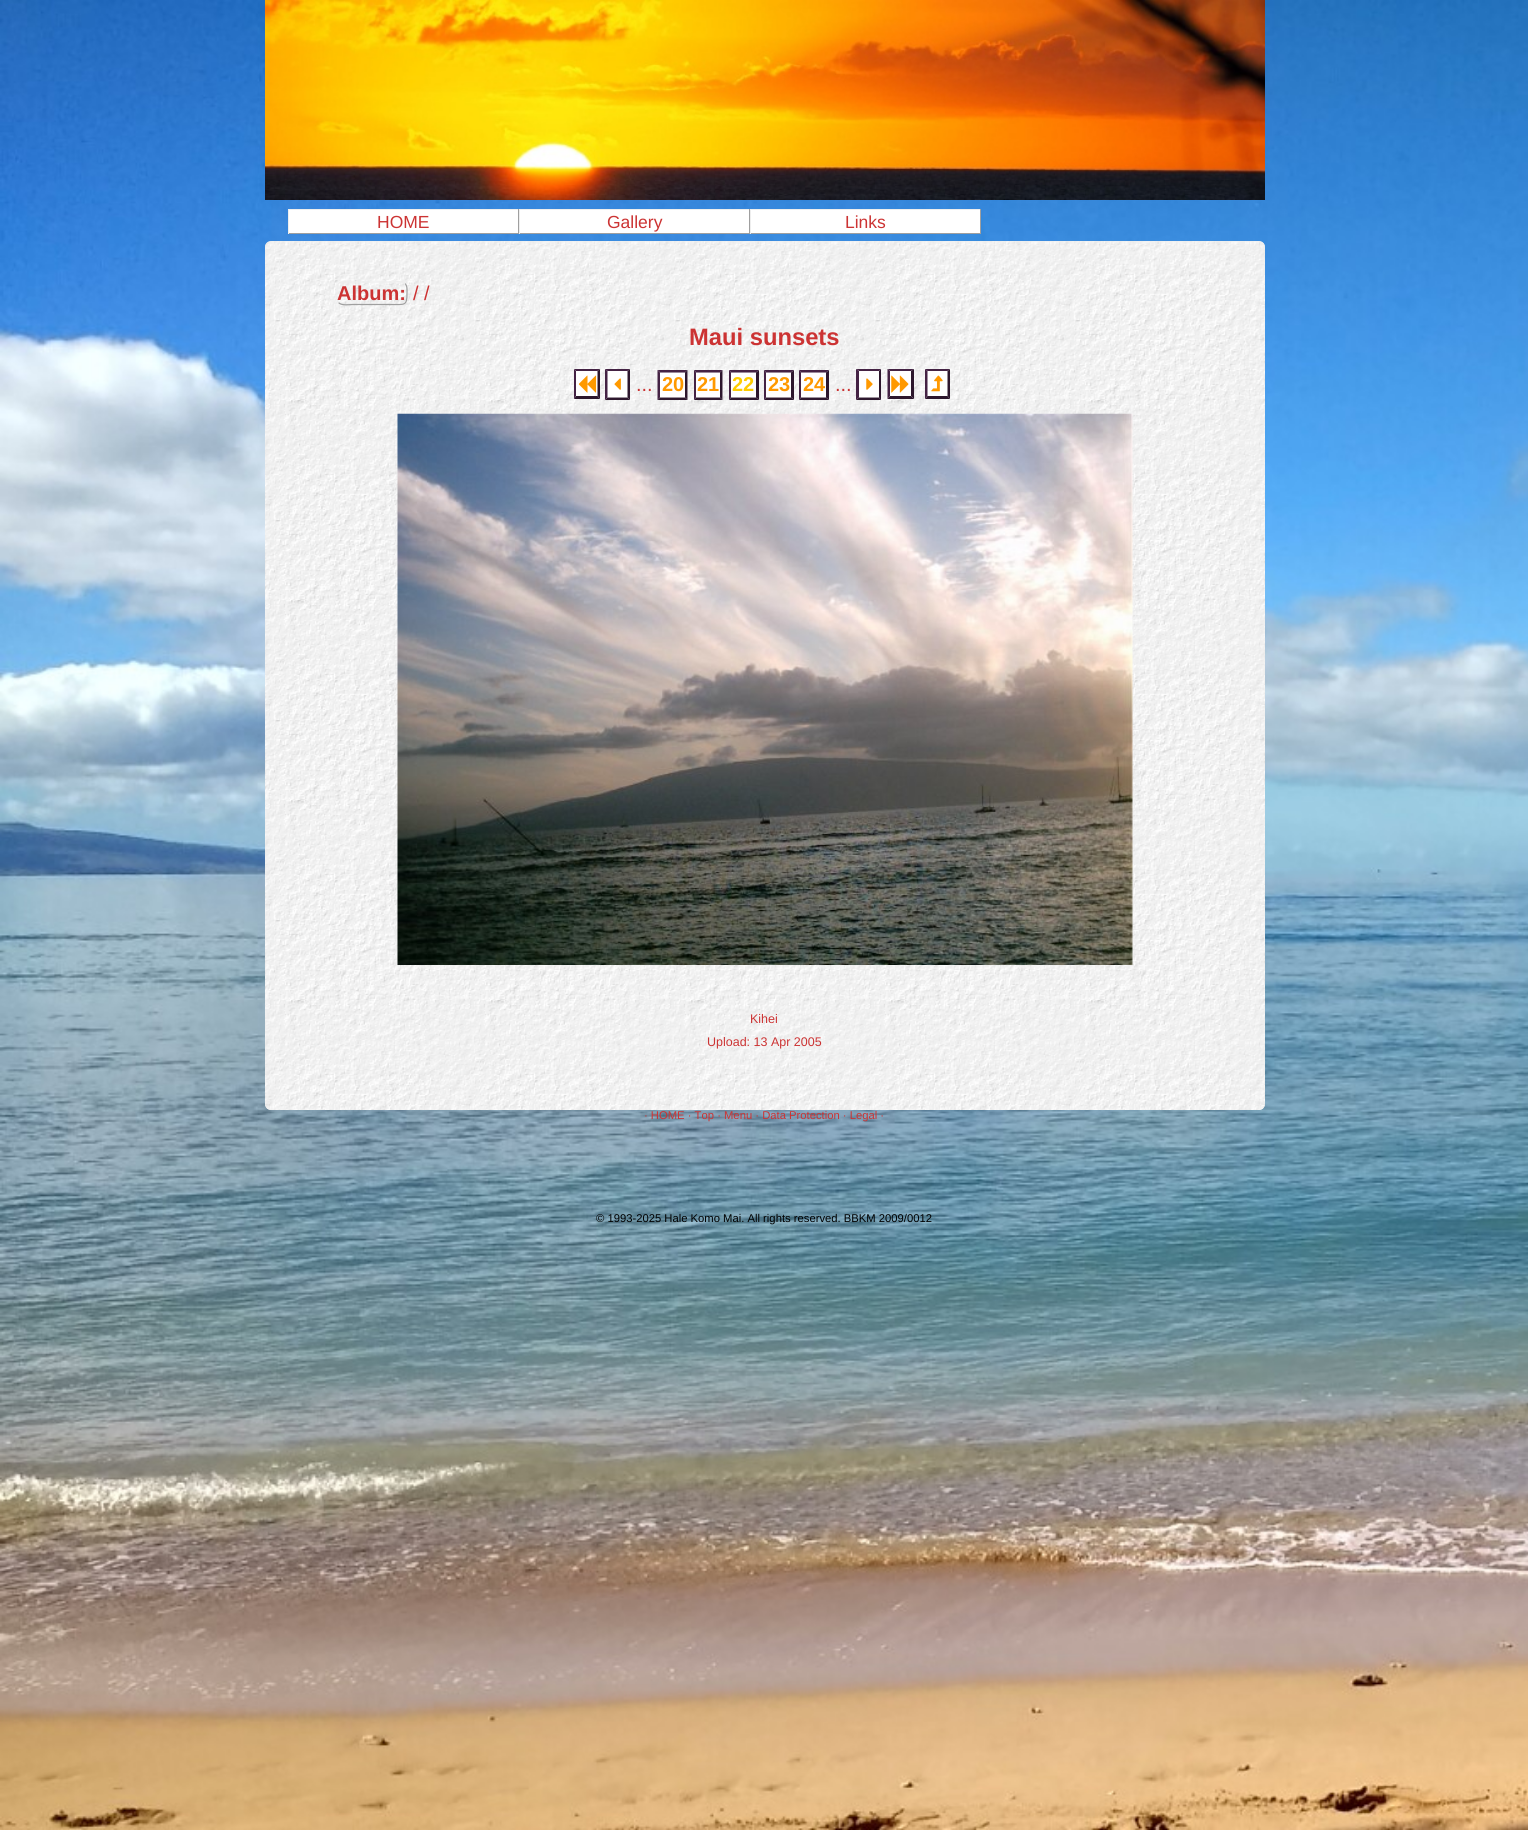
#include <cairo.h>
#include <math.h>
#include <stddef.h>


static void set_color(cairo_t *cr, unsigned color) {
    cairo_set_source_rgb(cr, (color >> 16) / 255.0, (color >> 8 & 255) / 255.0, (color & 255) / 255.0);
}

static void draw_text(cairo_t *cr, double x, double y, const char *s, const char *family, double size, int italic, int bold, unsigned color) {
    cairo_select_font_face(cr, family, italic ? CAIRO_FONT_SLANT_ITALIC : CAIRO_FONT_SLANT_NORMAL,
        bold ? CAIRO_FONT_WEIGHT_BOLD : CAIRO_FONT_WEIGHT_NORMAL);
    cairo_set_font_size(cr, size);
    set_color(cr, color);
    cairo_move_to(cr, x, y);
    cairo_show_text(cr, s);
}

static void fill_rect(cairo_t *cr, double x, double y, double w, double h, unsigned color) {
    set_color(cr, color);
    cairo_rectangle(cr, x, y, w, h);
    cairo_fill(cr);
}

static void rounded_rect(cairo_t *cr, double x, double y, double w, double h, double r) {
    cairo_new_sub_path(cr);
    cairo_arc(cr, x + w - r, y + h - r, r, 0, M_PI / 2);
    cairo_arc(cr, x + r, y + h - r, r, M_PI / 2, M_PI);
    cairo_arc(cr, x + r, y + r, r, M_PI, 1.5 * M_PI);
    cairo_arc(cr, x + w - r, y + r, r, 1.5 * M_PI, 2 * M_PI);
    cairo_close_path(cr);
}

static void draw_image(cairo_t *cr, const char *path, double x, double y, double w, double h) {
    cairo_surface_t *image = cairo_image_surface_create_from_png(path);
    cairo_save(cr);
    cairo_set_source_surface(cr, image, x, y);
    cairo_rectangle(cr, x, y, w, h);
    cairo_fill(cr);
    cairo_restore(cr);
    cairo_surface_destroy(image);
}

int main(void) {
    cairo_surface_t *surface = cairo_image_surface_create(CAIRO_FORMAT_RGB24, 1528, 1830);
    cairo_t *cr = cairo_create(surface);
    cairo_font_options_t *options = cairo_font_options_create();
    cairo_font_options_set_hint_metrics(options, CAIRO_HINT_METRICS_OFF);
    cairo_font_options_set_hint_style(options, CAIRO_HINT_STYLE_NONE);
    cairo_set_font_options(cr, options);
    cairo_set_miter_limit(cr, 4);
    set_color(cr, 0xFFFFFF);
    cairo_paint(cr);
    draw_image(cr, "assets/img1.png", 0, 0, 1528, 1830);
    draw_image(cr, "assets/img2.png", 265, 0, 1000, 200);
    fill_rect(cr, 289, 210, 229, 23, 0xFFFFFF);
    fill_rect(cr, 288, 209, 693, 1, 0xEEEEEE);
    fill_rect(cr, 518, 209, 1, 25, 0x9F9F9F);
    fill_rect(cr, 288, 233, 231, 1, 0x9F9F9F);
    fill_rect(cr, 288, 209, 1, 25, 0xEEEEEE);
    draw_text(cr, 377, 228, "HOME", "Liberation Sans", 17.5, 0, 0, 0xCC3333);
    fill_rect(cr, 520, 210, 229, 23, 0xFFFFFF);
    fill_rect(cr, 749, 209, 1, 25, 0x9F9F9F);
    fill_rect(cr, 519, 233, 231, 1, 0x9F9F9F);
    fill_rect(cr, 519, 209, 1, 25, 0xEEEEEE);
    draw_text(cr, 607, 228, "Gallery", "Liberation Sans", 17.5, 0, 0, 0xCC3333);
    fill_rect(cr, 751, 210, 229, 23, 0xFFFFFF);
    fill_rect(cr, 980, 209, 1, 25, 0x9F9F9F);
    fill_rect(cr, 750, 233, 231, 1, 0x9F9F9F);
    fill_rect(cr, 750, 209, 1, 25, 0xEEEEEE);
    draw_text(cr, 845, 228, "Links", "Liberation Sans", 17.5, 0, 0, 0xCC3333);
    set_color(cr, 0xEEEEEE);
    rounded_rect(cr, 265, 241, 1000, 869, 6);
    cairo_fill(cr);
    draw_image(cr, "assets/img3.png", 265, 241, 1000, 869);
    cairo_new_path(cr);
    cairo_move_to(cr, 405, 283.5);
    cairo_curve_to(cr, 407.5, 286, 407, 290, 407, 293);
    cairo_curve_to(cr, 407, 306, 405, 304.5, 391.5, 304.5);
    cairo_line_to(cr, 352.5, 304.5);
    cairo_curve_to(cr, 349.5, 304.5, 341.5, 306, 338.5, 302.5);
    set_color(cr, 0x9F9F9F);
    cairo_set_line_width(cr, 1.2);
    cairo_stroke(cr);
    cairo_new_path(cr);
    cairo_move_to(cr, 338.5, 302.5);
    cairo_curve_to(cr, 336, 300.5, 337, 296, 337, 293);
    cairo_curve_to(cr, 337, 280, 339, 282, 352.5, 282);
    cairo_line_to(cr, 391.5, 282);
    cairo_curve_to(cr, 394, 282, 402, 280.5, 405, 283.5);
    set_color(cr, 0xEEEEEE);
    cairo_stroke(cr);
    draw_text(cr, 337, 300, "Album:", "Liberation Sans", 20, 0, 1, 0xCC3333);
    draw_text(cr, 413, 300, "/ /", "Liberation Sans", 20, 0, 0, 0xCC3333);
    draw_text(cr, 689, 345, "Maui sunsets", "Liberation Sans", 23.75, 0, 1, 0xCC3333);
    fill_rect(cr, 574, 369, 26, 30, 0xFFFFFF);
    set_color(cr, 0x442244);
    cairo_new_path(cr);
    cairo_move_to(cr, 574, 369);
    cairo_line_to(cr, 600, 369);
    cairo_line_to(cr, 597.5, 371);
    cairo_line_to(cr, 576, 371);
    cairo_close_path(cr);
    cairo_fill(cr);
    set_color(cr, 0x2D172D);
    cairo_new_path(cr);
    cairo_move_to(cr, 600, 369);
    cairo_line_to(cr, 600, 399);
    cairo_line_to(cr, 597.5, 396);
    cairo_line_to(cr, 597.5, 371);
    cairo_close_path(cr);
    cairo_fill(cr);
    cairo_new_path(cr);
    cairo_move_to(cr, 600, 399);
    cairo_line_to(cr, 574, 399);
    cairo_line_to(cr, 576, 396);
    cairo_line_to(cr, 597.5, 396);
    cairo_close_path(cr);
    cairo_fill(cr);
    set_color(cr, 0x442244);
    cairo_new_path(cr);
    cairo_move_to(cr, 574, 399);
    cairo_line_to(cr, 574, 369);
    cairo_line_to(cr, 576, 371);
    cairo_line_to(cr, 576, 396);
    cairo_close_path(cr);
    cairo_fill(cr);
    draw_image(cr, "assets/img4.png", 578, 375, 19, 18);
    fill_rect(cr, 605, 369, 25, 31, 0xFFFFFF);
    set_color(cr, 0x442244);
    cairo_new_path(cr);
    cairo_move_to(cr, 605, 369);
    cairo_line_to(cr, 630, 369);
    cairo_line_to(cr, 627.5, 371);
    cairo_line_to(cr, 607.5, 371);
    cairo_close_path(cr);
    cairo_fill(cr);
    set_color(cr, 0x2D172D);
    cairo_new_path(cr);
    cairo_move_to(cr, 630, 369);
    cairo_line_to(cr, 630, 400);
    cairo_line_to(cr, 627.5, 397.5);
    cairo_line_to(cr, 627.5, 371);
    cairo_close_path(cr);
    cairo_fill(cr);
    cairo_new_path(cr);
    cairo_move_to(cr, 630, 400);
    cairo_line_to(cr, 605, 400);
    cairo_line_to(cr, 607.5, 397.5);
    cairo_line_to(cr, 627.5, 397.5);
    cairo_close_path(cr);
    cairo_fill(cr);
    set_color(cr, 0x442244);
    cairo_new_path(cr);
    cairo_move_to(cr, 605, 400);
    cairo_line_to(cr, 605, 369);
    cairo_line_to(cr, 607.5, 371);
    cairo_line_to(cr, 607.5, 397.5);
    cairo_close_path(cr);
    cairo_fill(cr);
    draw_image(cr, "assets/img5.png", 614, 378, 7, 12);
    draw_text(cr, 636, 391, "...", "Liberation Sans", 20, 0, 0, 0xCC3333);
    fill_rect(cr, 658, 370, 30, 30, 0xFFFFFF);
    set_color(cr, 0x442244);
    cairo_new_path(cr);
    cairo_move_to(cr, 657.5, 370);
    cairo_line_to(cr, 687.5, 370);
    cairo_line_to(cr, 685, 372.5);
    cairo_line_to(cr, 660, 372.5);
    cairo_close_path(cr);
    cairo_fill(cr);
    set_color(cr, 0x2D172D);
    cairo_new_path(cr);
    cairo_move_to(cr, 687.5, 370);
    cairo_line_to(cr, 687.5, 400);
    cairo_line_to(cr, 685, 397.5);
    cairo_line_to(cr, 685, 372.5);
    cairo_close_path(cr);
    cairo_fill(cr);
    cairo_new_path(cr);
    cairo_move_to(cr, 687.5, 400);
    cairo_line_to(cr, 657.5, 400);
    cairo_line_to(cr, 660, 397.5);
    cairo_line_to(cr, 685, 397.5);
    cairo_close_path(cr);
    cairo_fill(cr);
    set_color(cr, 0x442244);
    cairo_new_path(cr);
    cairo_move_to(cr, 657.5, 400);
    cairo_line_to(cr, 657.5, 370);
    cairo_line_to(cr, 660, 372.5);
    cairo_line_to(cr, 660, 397.5);
    cairo_close_path(cr);
    cairo_fill(cr);
    draw_text(cr, 662, 391, "20", "Liberation Sans", 20, 0, 1, 0xFF9900);
    fill_rect(cr, 694, 370, 29, 30, 0xFFFFFF);
    set_color(cr, 0x442244);
    cairo_new_path(cr);
    cairo_move_to(cr, 694, 370);
    cairo_line_to(cr, 722.5, 370);
    cairo_line_to(cr, 720, 372.5);
    cairo_line_to(cr, 696, 372.5);
    cairo_close_path(cr);
    cairo_fill(cr);
    set_color(cr, 0x2D172D);
    cairo_new_path(cr);
    cairo_move_to(cr, 722.5, 370);
    cairo_line_to(cr, 722.5, 400);
    cairo_line_to(cr, 720, 397.5);
    cairo_line_to(cr, 720, 372.5);
    cairo_close_path(cr);
    cairo_fill(cr);
    cairo_new_path(cr);
    cairo_move_to(cr, 722.5, 400);
    cairo_line_to(cr, 694, 400);
    cairo_line_to(cr, 696, 397.5);
    cairo_line_to(cr, 720, 397.5);
    cairo_close_path(cr);
    cairo_fill(cr);
    set_color(cr, 0x442244);
    cairo_new_path(cr);
    cairo_move_to(cr, 694, 400);
    cairo_line_to(cr, 694, 370);
    cairo_line_to(cr, 696, 372.5);
    cairo_line_to(cr, 696, 397.5);
    cairo_close_path(cr);
    cairo_fill(cr);
    draw_text(cr, 697, 391, "21", "Liberation Sans", 20, 0, 1, 0xFF9900);
    fill_rect(cr, 729, 370, 30, 30, 0xFFFFFF);
    set_color(cr, 0x442244);
    cairo_new_path(cr);
    cairo_move_to(cr, 729, 370);
    cairo_line_to(cr, 759, 370);
    cairo_line_to(cr, 756, 372.5);
    cairo_line_to(cr, 731, 372.5);
    cairo_close_path(cr);
    cairo_fill(cr);
    set_color(cr, 0x2D172D);
    cairo_new_path(cr);
    cairo_move_to(cr, 759, 370);
    cairo_line_to(cr, 759, 400);
    cairo_line_to(cr, 756, 397.5);
    cairo_line_to(cr, 756, 372.5);
    cairo_close_path(cr);
    cairo_fill(cr);
    cairo_new_path(cr);
    cairo_move_to(cr, 759, 400);
    cairo_line_to(cr, 729, 400);
    cairo_line_to(cr, 731, 397.5);
    cairo_line_to(cr, 756, 397.5);
    cairo_close_path(cr);
    cairo_fill(cr);
    set_color(cr, 0x442244);
    cairo_new_path(cr);
    cairo_move_to(cr, 729, 400);
    cairo_line_to(cr, 729, 370);
    cairo_line_to(cr, 731, 372.5);
    cairo_line_to(cr, 731, 397.5);
    cairo_close_path(cr);
    cairo_fill(cr);
    draw_text(cr, 732, 391, "22", "Liberation Sans", 20, 0, 1, 0xFFCC00);
    fill_rect(cr, 764, 370, 30, 30, 0xFFFFFF);
    set_color(cr, 0x442244);
    cairo_new_path(cr);
    cairo_move_to(cr, 764, 370);
    cairo_line_to(cr, 794, 370);
    cairo_line_to(cr, 791, 372.5);
    cairo_line_to(cr, 766, 372.5);
    cairo_close_path(cr);
    cairo_fill(cr);
    set_color(cr, 0x2D172D);
    cairo_new_path(cr);
    cairo_move_to(cr, 794, 370);
    cairo_line_to(cr, 794, 400);
    cairo_line_to(cr, 791, 397.5);
    cairo_line_to(cr, 791, 372.5);
    cairo_close_path(cr);
    cairo_fill(cr);
    cairo_new_path(cr);
    cairo_move_to(cr, 794, 400);
    cairo_line_to(cr, 764, 400);
    cairo_line_to(cr, 766, 397.5);
    cairo_line_to(cr, 791, 397.5);
    cairo_close_path(cr);
    cairo_fill(cr);
    set_color(cr, 0x442244);
    cairo_new_path(cr);
    cairo_move_to(cr, 764, 400);
    cairo_line_to(cr, 764, 370);
    cairo_line_to(cr, 766, 372.5);
    cairo_line_to(cr, 766, 397.5);
    cairo_close_path(cr);
    cairo_fill(cr);
    draw_text(cr, 768, 391, "23", "Liberation Sans", 20, 0, 1, 0xFF9900);
    fill_rect(cr, 799, 370, 30, 30, 0xFFFFFF);
    set_color(cr, 0x442244);
    cairo_new_path(cr);
    cairo_move_to(cr, 799, 370);
    cairo_line_to(cr, 829, 370);
    cairo_line_to(cr, 826, 372.5);
    cairo_line_to(cr, 801, 372.5);
    cairo_close_path(cr);
    cairo_fill(cr);
    set_color(cr, 0x2D172D);
    cairo_new_path(cr);
    cairo_move_to(cr, 829, 370);
    cairo_line_to(cr, 829, 400);
    cairo_line_to(cr, 826, 397.5);
    cairo_line_to(cr, 826, 372.5);
    cairo_close_path(cr);
    cairo_fill(cr);
    cairo_new_path(cr);
    cairo_move_to(cr, 829, 400);
    cairo_line_to(cr, 799, 400);
    cairo_line_to(cr, 801, 397.5);
    cairo_line_to(cr, 826, 397.5);
    cairo_close_path(cr);
    cairo_fill(cr);
    set_color(cr, 0x442244);
    cairo_new_path(cr);
    cairo_move_to(cr, 799, 400);
    cairo_line_to(cr, 799, 370);
    cairo_line_to(cr, 801, 372.5);
    cairo_line_to(cr, 801, 397.5);
    cairo_close_path(cr);
    cairo_fill(cr);
    draw_text(cr, 803, 391, "24", "Liberation Sans", 20, 0, 1, 0xFF9900);
    draw_text(cr, 835, 391, "...", "Liberation Sans", 20, 0, 0, 0xCC3333);
    fill_rect(cr, 856, 369, 25, 31, 0xFFFFFF);
    set_color(cr, 0x442244);
    cairo_new_path(cr);
    cairo_move_to(cr, 856, 369);
    cairo_line_to(cr, 881, 369);
    cairo_line_to(cr, 879, 371);
    cairo_line_to(cr, 859, 371);
    cairo_close_path(cr);
    cairo_fill(cr);
    set_color(cr, 0x2D172D);
    cairo_new_path(cr);
    cairo_move_to(cr, 881, 369);
    cairo_line_to(cr, 881, 400);
    cairo_line_to(cr, 879, 397.5);
    cairo_line_to(cr, 879, 371);
    cairo_close_path(cr);
    cairo_fill(cr);
    cairo_new_path(cr);
    cairo_move_to(cr, 881, 400);
    cairo_line_to(cr, 856, 400);
    cairo_line_to(cr, 859, 397.5);
    cairo_line_to(cr, 879, 397.5);
    cairo_close_path(cr);
    cairo_fill(cr);
    set_color(cr, 0x442244);
    cairo_new_path(cr);
    cairo_move_to(cr, 856, 400);
    cairo_line_to(cr, 856, 369);
    cairo_line_to(cr, 859, 371);
    cairo_line_to(cr, 859, 397.5);
    cairo_close_path(cr);
    cairo_fill(cr);
    draw_image(cr, "assets/img6.png", 866, 378, 7, 12);
    fill_rect(cr, 888, 369, 26, 30, 0xFFFFFF);
    set_color(cr, 0x442244);
    cairo_new_path(cr);
    cairo_move_to(cr, 887.5, 369);
    cairo_line_to(cr, 914, 369);
    cairo_line_to(cr, 911, 371);
    cairo_line_to(cr, 890, 371);
    cairo_close_path(cr);
    cairo_fill(cr);
    set_color(cr, 0x2D172D);
    cairo_new_path(cr);
    cairo_move_to(cr, 914, 369);
    cairo_line_to(cr, 914, 399);
    cairo_line_to(cr, 911, 396);
    cairo_line_to(cr, 911, 371);
    cairo_close_path(cr);
    cairo_fill(cr);
    cairo_new_path(cr);
    cairo_move_to(cr, 914, 399);
    cairo_line_to(cr, 887.5, 399);
    cairo_line_to(cr, 890, 396);
    cairo_line_to(cr, 911, 396);
    cairo_close_path(cr);
    cairo_fill(cr);
    set_color(cr, 0x442244);
    cairo_new_path(cr);
    cairo_move_to(cr, 887.5, 399);
    cairo_line_to(cr, 887.5, 369);
    cairo_line_to(cr, 890, 371);
    cairo_line_to(cr, 890, 396);
    cairo_close_path(cr);
    cairo_fill(cr);
    draw_image(cr, "assets/img7.png", 891, 375, 18, 18);
    fill_rect(cr, 925, 369, 25, 30, 0xFFFFFF);
    set_color(cr, 0x442244);
    cairo_new_path(cr);
    cairo_move_to(cr, 925, 369);
    cairo_line_to(cr, 950, 369);
    cairo_line_to(cr, 947.5, 371);
    cairo_line_to(cr, 927.5, 371);
    cairo_close_path(cr);
    cairo_fill(cr);
    set_color(cr, 0x2D172D);
    cairo_new_path(cr);
    cairo_move_to(cr, 950, 369);
    cairo_line_to(cr, 950, 399);
    cairo_line_to(cr, 947.5, 396);
    cairo_line_to(cr, 947.5, 371);
    cairo_close_path(cr);
    cairo_fill(cr);
    cairo_new_path(cr);
    cairo_move_to(cr, 950, 399);
    cairo_line_to(cr, 925, 399);
    cairo_line_to(cr, 927.5, 396);
    cairo_line_to(cr, 947.5, 396);
    cairo_close_path(cr);
    cairo_fill(cr);
    set_color(cr, 0x442244);
    cairo_new_path(cr);
    cairo_move_to(cr, 925, 399);
    cairo_line_to(cr, 925, 369);
    cairo_line_to(cr, 927.5, 371);
    cairo_line_to(cr, 927.5, 396);
    cairo_close_path(cr);
    cairo_fill(cr);
    draw_image(cr, "assets/img8.png", 931, 375, 12, 17);
    draw_image(cr, "assets/img9.png", 397, 413, 736, 552);
    draw_text(cr, 750, 1023, "Kihei", "Liberation Sans", 12.5, 0, 0, 0xCC3333);
    draw_text(cr, 707, 1046, "Upload: 13 Apr 2005", "Liberation Sans", 12.5, 0, 0, 0xCC3333);
    draw_text(cr, 644, 1119, "· HOME · Top · Menu · Data Protection · Legal ·", "Liberation Sans", 11.25, 0, 0, 0xCC3333);
    draw_text(cr, 596, 1222, "© 1993-2025 Hale Komo Mai. All rights reserved. BBKM 2009/0012", "Liberation Sans", 11.25, 0, 0, 0x000000);
    cairo_surface_write_to_png(surface, "output.png");
    cairo_font_options_destroy(options);
    cairo_destroy(cr);
    cairo_surface_destroy(surface);
    return 0;
}
